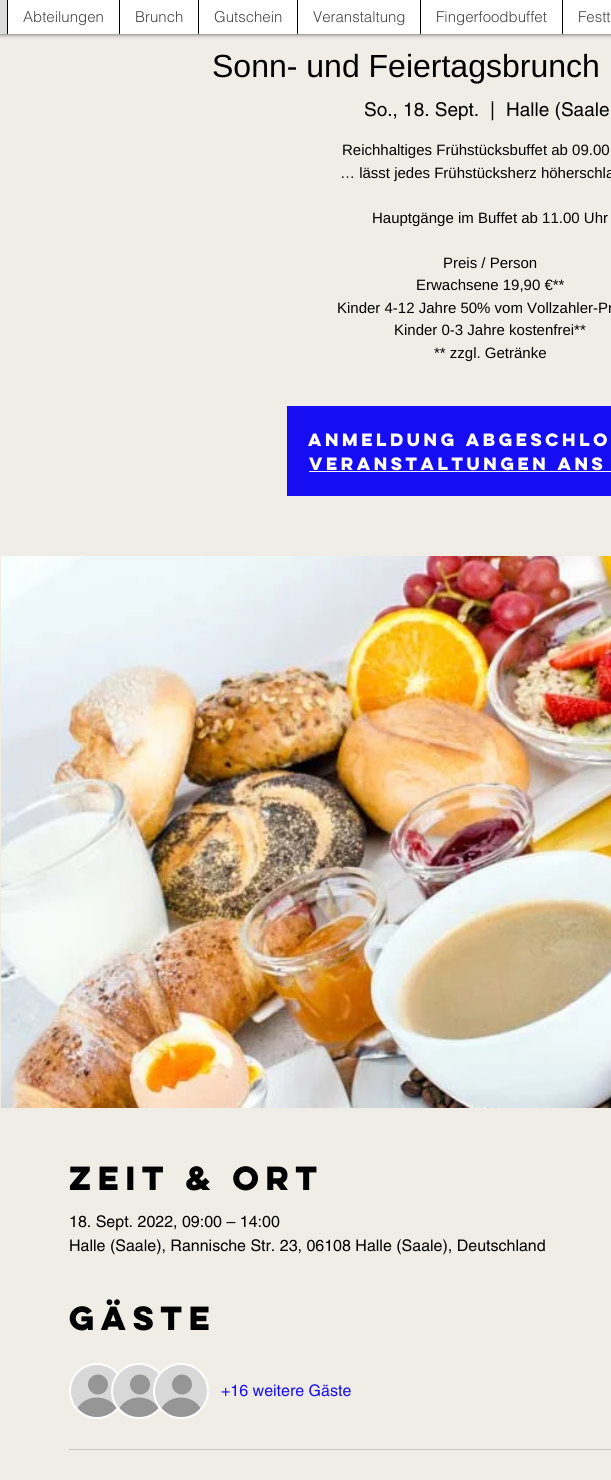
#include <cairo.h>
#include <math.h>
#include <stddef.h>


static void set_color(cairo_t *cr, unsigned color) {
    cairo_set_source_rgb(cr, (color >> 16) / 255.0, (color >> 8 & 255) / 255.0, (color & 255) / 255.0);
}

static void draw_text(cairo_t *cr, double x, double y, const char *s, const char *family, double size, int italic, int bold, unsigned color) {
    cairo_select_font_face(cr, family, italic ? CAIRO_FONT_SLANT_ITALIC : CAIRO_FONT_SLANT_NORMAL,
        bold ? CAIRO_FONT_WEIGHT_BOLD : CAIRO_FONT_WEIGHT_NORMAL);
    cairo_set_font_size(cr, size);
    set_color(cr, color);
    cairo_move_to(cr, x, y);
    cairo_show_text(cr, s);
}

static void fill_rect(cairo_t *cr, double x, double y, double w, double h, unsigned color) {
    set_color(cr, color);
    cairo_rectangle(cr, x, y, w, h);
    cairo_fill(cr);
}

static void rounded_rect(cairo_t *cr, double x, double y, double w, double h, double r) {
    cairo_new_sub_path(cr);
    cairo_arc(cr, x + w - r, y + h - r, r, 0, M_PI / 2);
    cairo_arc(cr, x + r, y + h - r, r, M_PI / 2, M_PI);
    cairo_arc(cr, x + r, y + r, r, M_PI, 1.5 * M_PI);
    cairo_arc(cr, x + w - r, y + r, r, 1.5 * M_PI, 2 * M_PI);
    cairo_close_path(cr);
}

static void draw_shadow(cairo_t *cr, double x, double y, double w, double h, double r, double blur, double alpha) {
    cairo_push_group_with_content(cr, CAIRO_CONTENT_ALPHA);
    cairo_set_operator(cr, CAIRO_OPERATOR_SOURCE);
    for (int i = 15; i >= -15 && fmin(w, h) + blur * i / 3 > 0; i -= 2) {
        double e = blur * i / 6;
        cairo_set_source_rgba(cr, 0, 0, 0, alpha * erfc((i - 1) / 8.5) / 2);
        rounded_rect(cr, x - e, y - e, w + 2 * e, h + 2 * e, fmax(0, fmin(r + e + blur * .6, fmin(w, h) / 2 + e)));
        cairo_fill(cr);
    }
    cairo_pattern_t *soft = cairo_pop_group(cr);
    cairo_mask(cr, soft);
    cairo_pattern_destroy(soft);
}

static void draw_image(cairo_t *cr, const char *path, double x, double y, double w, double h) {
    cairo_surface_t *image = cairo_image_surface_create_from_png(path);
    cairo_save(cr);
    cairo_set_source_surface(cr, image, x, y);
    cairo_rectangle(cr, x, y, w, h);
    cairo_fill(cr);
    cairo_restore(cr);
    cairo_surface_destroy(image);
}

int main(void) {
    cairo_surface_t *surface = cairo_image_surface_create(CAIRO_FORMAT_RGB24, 611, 1480);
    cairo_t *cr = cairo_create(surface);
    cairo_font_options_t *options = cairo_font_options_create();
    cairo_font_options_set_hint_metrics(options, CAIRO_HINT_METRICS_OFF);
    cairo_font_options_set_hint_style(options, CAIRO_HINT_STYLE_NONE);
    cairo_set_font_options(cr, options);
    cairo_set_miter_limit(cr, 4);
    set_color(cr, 0xF0EDE6);
    cairo_paint(cr);
    set_color(cr, 0x000000);
    draw_shadow(cr, 0, 0, 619, 34, 0, 2.5, 0.7);
    fill_rect(cr, 8, 0, 603, 34, 0xFFFFFF);
    fill_rect(cr, 0, 0, 7, 34, 0xDDDDDD);
    fill_rect(cr, 7, 0, 1, 34, 0x000000);
    draw_text(cr, 23, 22, "Abteilungen", "helvetica Light", 15, 0, 0, 0x444444);
    fill_rect(cr, 119, 0, 1, 34, 0x000000);
    draw_text(cr, 135, 22, "Brunch", "helvetica Light", 15, 0, 0, 0x444444);
    fill_rect(cr, 198, 0, 1, 34, 0x000000);
    draw_text(cr, 214, 22, "Gutschein", "helvetica Light", 15, 0, 0, 0x444444);
    fill_rect(cr, 297, 0, 1, 34, 0x000000);
    draw_text(cr, 313, 22, "Veranstaltung", "helvetica Light", 15, 0, 0, 0x444444);
    fill_rect(cr, 420, 0, 1, 34, 0x000000);
    draw_text(cr, 436, 22, "Fingerfoodbuffet", "helvetica Light", 15, 0, 0, 0x444444);
    fill_rect(cr, 562, 0, 1, 34, 0x000000);
    draw_text(cr, 578, 22, "Festt", "helvetica Light", 15, 0, 0, 0x444444);
    draw_text(cr, 212, 77, "Sonn- und Feiertagsbrunch", "Liberation Sans", 32, 0, 0, 0x000000);
    draw_text(cr, 364, 116, "So., 18. Sept.", "helvetica", 19, 0, 0, 0x000000);
    draw_text(cr, 490, 116, "|", "helvetica", 19, 0, 0, 0x000000);
    draw_text(cr, 506, 116, "Halle (Saale", "helvetica", 19, 0, 0, 0x000000);
    draw_text(cr, 342, 155, "Reichhaltiges Frühstücksbuffet ab 09.00", "Liberation Sans", 15, 0, 0, 0x000000);
    draw_text(cr, 340, 178, "… lässt jedes Frühstücksherz höherschla", "Liberation Sans", 15, 0, 0, 0x000000);
    draw_text(cr, 372, 223, "Hauptgänge im Buffet ab 11.00 Uhr", "Liberation Sans", 15, 0, 0, 0x000000);
    draw_text(cr, 443, 268, "Preis / Person", "Liberation Sans", 15, 0, 0, 0x000000);
    draw_text(cr, 416, 290, "Erwachsene 19,90 €**", "Liberation Sans", 15, 0, 0, 0x000000);
    draw_text(cr, 337, 313, "Kinder 4-12 Jahre 50% vom Vollzahler-Pr", "Liberation Sans", 15, 0, 0, 0x000000);
    draw_text(cr, 394, 335, "Kinder 0-3 Jahre kostenfrei**", "Liberation Sans", 15, 0, 0, 0x000000);
    draw_text(cr, 434, 358, "** zzgl. Getränke", "Liberation Sans", 15, 0, 0, 0x000000);
    fill_rect(cr, 287, 406, 324, 90, 0x170DF2);
    draw_text(cr, 308, 446, "Anmeldung abgeschlo", "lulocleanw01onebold", 16, 0, 1, 0xFFFFFF);
    draw_text(cr, 309, 470, "Veranstaltungen ans", "lulocleanw01onebold", 16, 0, 1, 0xFFFFFF);
    fill_rect(cr, 309, 471, 302, 1, 0xFFFFFF);
    draw_image(cr, "assets/img1.png", 1, 556, 610, 552);
    draw_text(cr, 69, 1190, "Zeit & Ort", "lulocleanw01onebold", 30, 0, 1, 0x000000);
    draw_text(cr, 69, 1227, "18. Sept. 2022, 09:00 – 14:00", "helvetica", 16, 0, 0, 0x000000);
    draw_text(cr, 69, 1251, "Halle (Saale), Rannische Str. 23, 06108 Halle (Saale), Deutschland", "helvetica", 16, 0, 0, 0x000000);
    draw_text(cr, 69, 1330, "Gäste", "lulocleanw01onebold", 30, 0, 1, 0x000000);
    set_color(cr, 0xD8D8D8);
    cairo_new_path(cr);
    cairo_arc(cr, 97, 1391, 27, 0, 2 * M_PI);
    cairo_fill_preserve(cr);
    set_color(cr, 0xFFFFFF);
    cairo_stroke(cr);
    set_color(cr, 0x969696);
    cairo_arc(cr, 98, 1384.5, 10, 0, 2 * M_PI);
    cairo_fill(cr);
    cairo_new_path(cr);
    cairo_move_to(cr, 116.5, 1408);
    cairo_curve_to(cr, 106.5, 1420, 87.5, 1420, 77.5, 1408);
    cairo_curve_to(cr, 86, 1394, 108, 1394, 116.5, 1408);
    cairo_close_path(cr);
    cairo_fill(cr);
    set_color(cr, 0xD8D8D8);
    cairo_arc(cr, 139, 1391, 27, 0, 2 * M_PI);
    cairo_fill_preserve(cr);
    set_color(cr, 0xFFFFFF);
    cairo_stroke(cr);
    set_color(cr, 0x969696);
    cairo_arc(cr, 140, 1384.5, 10, 0, 2 * M_PI);
    cairo_fill(cr);
    cairo_new_path(cr);
    cairo_move_to(cr, 158.5, 1408);
    cairo_curve_to(cr, 148.5, 1420, 129.5, 1420, 119.5, 1408);
    cairo_curve_to(cr, 128, 1394, 150, 1394, 158.5, 1408);
    cairo_close_path(cr);
    cairo_fill(cr);
    set_color(cr, 0xD8D8D8);
    cairo_arc(cr, 181, 1391, 27, 0, 2 * M_PI);
    cairo_fill_preserve(cr);
    set_color(cr, 0xFFFFFF);
    cairo_stroke(cr);
    set_color(cr, 0x969696);
    cairo_arc(cr, 182, 1384.5, 10, 0, 2 * M_PI);
    cairo_fill(cr);
    cairo_new_path(cr);
    cairo_move_to(cr, 200.5, 1408);
    cairo_curve_to(cr, 190.5, 1420, 171.5, 1420, 161.5, 1408);
    cairo_curve_to(cr, 170, 1394, 192, 1394, 200.5, 1408);
    cairo_close_path(cr);
    cairo_fill(cr);
    draw_text(cr, 221, 1396, "+16 weitere Gäste", "helvetica", 16, 0, 0, 0x170DF2);
    fill_rect(cr, 69, 1449, 542, 1, 0xCCC9C4);
    cairo_surface_write_to_png(surface, "output.png");
    cairo_font_options_destroy(options);
    cairo_destroy(cr);
    cairo_surface_destroy(surface);
    return 0;
}
